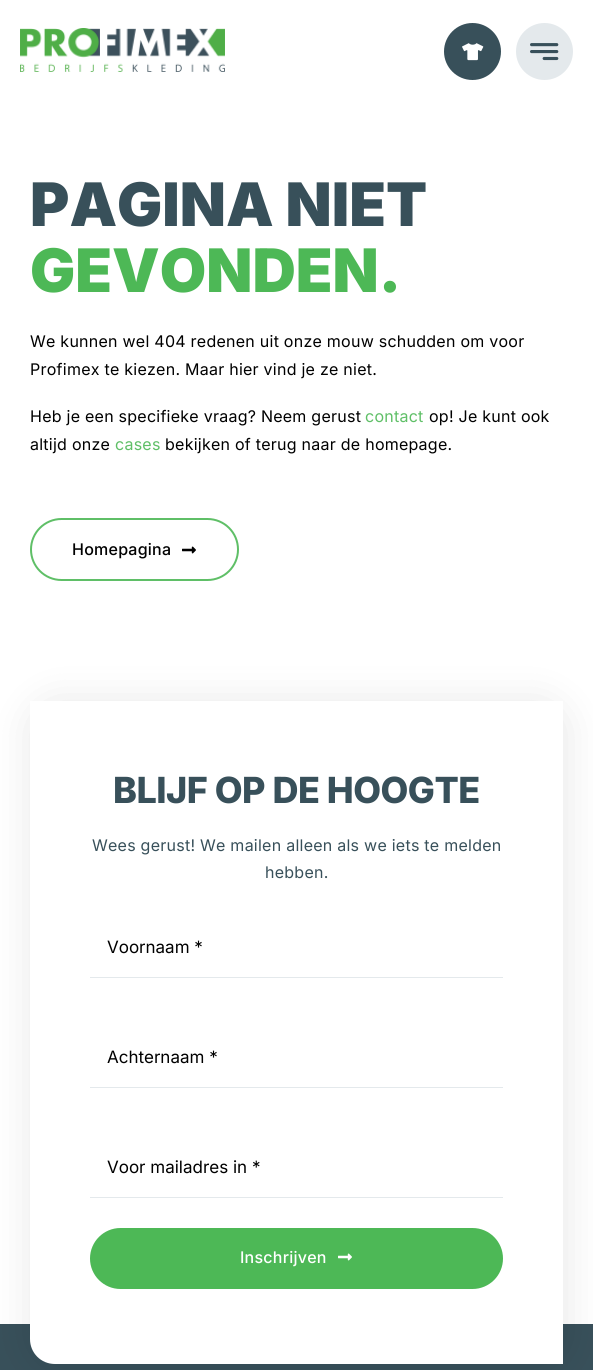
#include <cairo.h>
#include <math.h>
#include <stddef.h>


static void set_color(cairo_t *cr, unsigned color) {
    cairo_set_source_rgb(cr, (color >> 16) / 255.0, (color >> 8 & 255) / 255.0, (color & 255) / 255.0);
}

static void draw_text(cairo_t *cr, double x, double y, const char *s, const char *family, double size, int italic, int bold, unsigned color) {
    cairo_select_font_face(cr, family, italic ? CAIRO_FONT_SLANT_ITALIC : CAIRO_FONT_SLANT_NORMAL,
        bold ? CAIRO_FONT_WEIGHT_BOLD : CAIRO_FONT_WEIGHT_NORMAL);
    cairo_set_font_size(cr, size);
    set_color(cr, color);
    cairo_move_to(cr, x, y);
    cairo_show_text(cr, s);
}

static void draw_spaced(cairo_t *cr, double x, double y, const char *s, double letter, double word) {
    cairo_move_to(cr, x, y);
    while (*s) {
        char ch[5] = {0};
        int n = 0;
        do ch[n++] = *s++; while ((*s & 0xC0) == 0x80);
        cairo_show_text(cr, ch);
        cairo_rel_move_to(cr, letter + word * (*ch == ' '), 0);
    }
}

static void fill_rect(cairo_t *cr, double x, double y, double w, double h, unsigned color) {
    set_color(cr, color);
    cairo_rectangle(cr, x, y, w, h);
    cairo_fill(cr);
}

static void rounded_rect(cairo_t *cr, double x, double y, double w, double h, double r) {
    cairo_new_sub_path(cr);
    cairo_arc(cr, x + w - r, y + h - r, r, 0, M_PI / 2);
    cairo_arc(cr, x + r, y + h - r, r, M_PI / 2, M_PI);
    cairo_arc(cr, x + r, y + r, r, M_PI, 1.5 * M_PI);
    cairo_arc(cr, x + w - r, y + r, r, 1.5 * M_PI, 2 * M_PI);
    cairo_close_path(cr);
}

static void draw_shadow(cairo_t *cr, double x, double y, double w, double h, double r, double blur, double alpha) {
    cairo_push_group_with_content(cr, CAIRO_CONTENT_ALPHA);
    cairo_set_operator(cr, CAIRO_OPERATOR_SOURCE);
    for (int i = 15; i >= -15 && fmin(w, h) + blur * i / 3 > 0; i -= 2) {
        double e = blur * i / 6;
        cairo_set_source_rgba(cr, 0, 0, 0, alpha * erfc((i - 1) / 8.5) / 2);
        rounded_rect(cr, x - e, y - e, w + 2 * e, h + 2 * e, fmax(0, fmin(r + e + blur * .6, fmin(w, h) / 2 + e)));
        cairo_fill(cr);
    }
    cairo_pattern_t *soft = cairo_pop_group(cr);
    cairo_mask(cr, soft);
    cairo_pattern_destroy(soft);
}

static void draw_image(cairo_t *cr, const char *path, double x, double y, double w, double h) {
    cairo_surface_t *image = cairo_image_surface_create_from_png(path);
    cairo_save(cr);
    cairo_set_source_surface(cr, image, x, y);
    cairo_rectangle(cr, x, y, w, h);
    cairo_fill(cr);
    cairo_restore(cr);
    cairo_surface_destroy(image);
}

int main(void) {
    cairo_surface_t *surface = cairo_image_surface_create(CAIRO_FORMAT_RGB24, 593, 1370);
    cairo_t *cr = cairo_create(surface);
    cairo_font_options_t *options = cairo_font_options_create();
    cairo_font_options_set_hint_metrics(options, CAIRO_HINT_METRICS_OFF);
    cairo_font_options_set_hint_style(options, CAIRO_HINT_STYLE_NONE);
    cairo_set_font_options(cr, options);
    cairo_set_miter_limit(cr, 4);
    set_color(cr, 0xFFFFFF);
    cairo_paint(cr);
    draw_image(cr, "assets/img1.png", 20, 28, 205, 44);
    set_color(cr, 0x38505A);
    cairo_arc(cr, 472.5, 51.5, 28.5, 0, 2 * M_PI);
    cairo_fill(cr);
    draw_image(cr, "assets/img2.png", 462, 43, 22, 18);
    set_color(cr, 0xE4E9EC);
    cairo_arc(cr, 544.5, 51.5, 28.5, 0, 2 * M_PI);
    cairo_fill(cr);
    draw_image(cr, "assets/img3.png", 530, 43, 29, 18);
    draw_text(cr, 30, 226, "PAGINA NIET", "Inter Black", 60, 0, 0, 0x38505A);
    draw_text(cr, 30, 292, "GEVONDEN.", "Inter Black", 60, 0, 0, 0x4DB856);
    cairo_select_font_face(cr, "Inter", CAIRO_FONT_SLANT_NORMAL, CAIRO_FONT_WEIGHT_NORMAL);
    cairo_set_font_size(cr, 16);
    set_color(cr, 0x000000);
    draw_spaced(cr, 30, 347, "We kunnen wel 404 redenen uit onze mouw schudden om voor", 0.25, 0);
    draw_spaced(cr, 30, 375, "Profimex te kiezen. Maar hier vind je ze niet.", 0.25, 0);
    draw_spaced(cr, 30, 422, "Heb je een specifieke vraag? Neem gerust", 0.25, 0);
    set_color(cr, 0x5FBF67);
    draw_spaced(cr, 365, 422, "contact", 0.25, 0);
    set_color(cr, 0x000000);
    draw_spaced(cr, 429, 422, "op! Je kunt ook", 0.25, 0);
    draw_spaced(cr, 30, 450, "altijd onze", 0.25, 0);
    set_color(cr, 0x5FBF67);
    draw_spaced(cr, 115, 450, "cases", 0.25, 0);
    set_color(cr, 0x000000);
    draw_spaced(cr, 165, 450, "bekijken of terug naar de homepage.", 0.25, 0);
    rounded_rect(cr, 31, 519, 207, 61, 30.5);
    set_color(cr, 0x5FBF67);
    cairo_stroke(cr);
    cairo_select_font_face(cr, "Inter Medium", CAIRO_FONT_SLANT_NORMAL, CAIRO_FONT_WEIGHT_NORMAL);
    set_color(cr, 0x000000);
    draw_spaced(cr, 72, 555, "Homepagina", 0.25, 0);
    draw_image(cr, "assets/img4.png", 182, 546, 14, 8);
    fill_rect(cr, 0, 1324, 593, 46, 0x38505A);
    set_color(cr, 0x000000);
    draw_shadow(cr, 32, 703, 533, 663, 25, 20, 0.1);
    set_color(cr, 0xFFFFFF);
    cairo_new_path(cr);
    cairo_move_to(cr, 30, 701);
    cairo_line_to(cr, 563, 701);
    cairo_line_to(cr, 563, 1364);
    cairo_line_to(cr, 55, 1364);
    cairo_curve_to(cr, 41, 1364, 30, 1353, 30, 1339);
    cairo_close_path(cr);
    cairo_fill(cr);
    cairo_select_font_face(cr, "Inter ExtraBold", CAIRO_FONT_SLANT_NORMAL, CAIRO_FONT_WEIGHT_NORMAL);
    cairo_set_font_size(cr, 36);
    set_color(cr, 0x38505A);
    draw_spaced(cr, 113, 803, "BLIJF OP DE HOOGTE", -0.5, 0);
    cairo_select_font_face(cr, "Inter", CAIRO_FONT_SLANT_NORMAL, CAIRO_FONT_WEIGHT_NORMAL);
    cairo_set_font_size(cr, 16);
    draw_spaced(cr, 92, 851, "Wees gerust! We mailen alleen als we iets te melden", 0.25, 0);
    draw_spaced(cr, 265, 878, "hebben.", 0.25, 0);
    fill_rect(cr, 90, 977, 413, 1, 0xE4E9EC);
    draw_text(cr, 107, 953, "Voornaam *", "Inter", 17, 0, 0, 0x000000);
    fill_rect(cr, 90, 1087, 413, 1, 0xE4E9EC);
    draw_text(cr, 107, 1063, "Achternaam *", "Inter", 17, 0, 0, 0x000000);
    fill_rect(cr, 90, 1197, 413, 1, 0xE4E9EC);
    draw_text(cr, 107, 1173, "Voor mailadres in *", "Inter", 17, 0, 0, 0x000000);
    set_color(cr, 0x4DB856);
    rounded_rect(cr, 90, 1228, 413, 61, 30.5);
    cairo_fill(cr);
    cairo_select_font_face(cr, "Inter Medium", CAIRO_FONT_SLANT_NORMAL, CAIRO_FONT_WEIGHT_NORMAL);
    cairo_set_font_size(cr, 16);
    set_color(cr, 0xFFFFFF);
    draw_spaced(cr, 240, 1263, "Inschrijven", 0.25, 0);
    draw_image(cr, "assets/img5.png", 338, 1253, 14, 8);
    cairo_surface_write_to_png(surface, "output.png");
    cairo_font_options_destroy(options);
    cairo_destroy(cr);
    cairo_surface_destroy(surface);
    return 0;
}
